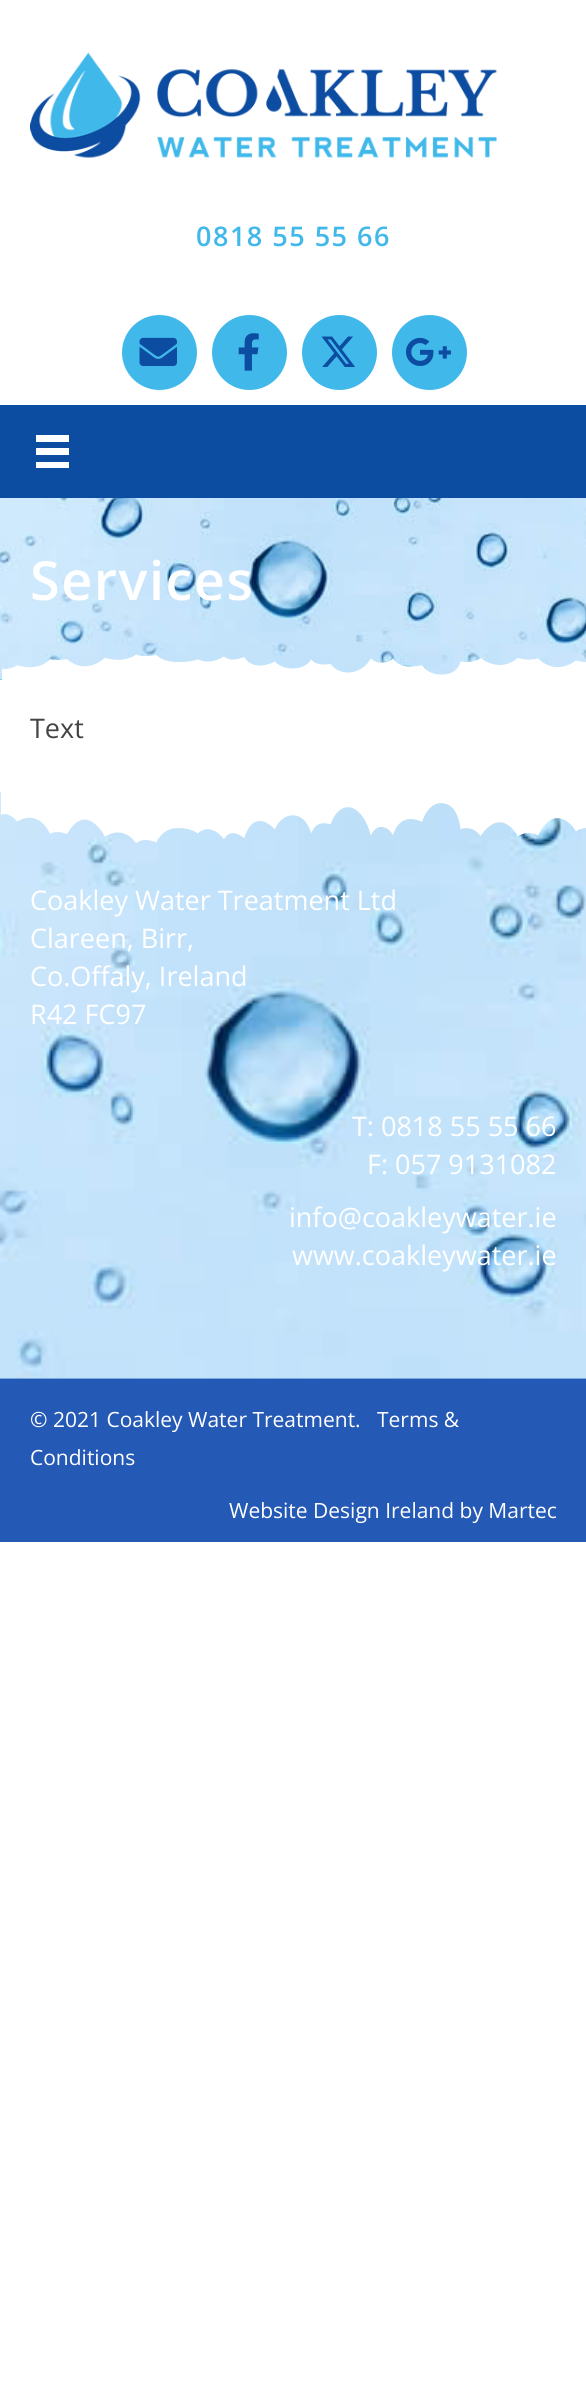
#include <cairo.h>
#include <math.h>
#include <stddef.h>


static void set_color(cairo_t *cr, unsigned color) {
    cairo_set_source_rgb(cr, (color >> 16) / 255.0, (color >> 8 & 255) / 255.0, (color & 255) / 255.0);
}

static void draw_text(cairo_t *cr, double x, double y, const char *s, const char *family, double size, int italic, int bold, unsigned color) {
    cairo_select_font_face(cr, family, italic ? CAIRO_FONT_SLANT_ITALIC : CAIRO_FONT_SLANT_NORMAL,
        bold ? CAIRO_FONT_WEIGHT_BOLD : CAIRO_FONT_WEIGHT_NORMAL);
    cairo_set_font_size(cr, size);
    set_color(cr, color);
    cairo_move_to(cr, x, y);
    cairo_show_text(cr, s);
}

static void draw_spaced(cairo_t *cr, double x, double y, const char *s, double letter, double word) {
    cairo_move_to(cr, x, y);
    while (*s) {
        char ch[5] = {0};
        int n = 0;
        do ch[n++] = *s++; while ((*s & 0xC0) == 0x80);
        cairo_show_text(cr, ch);
        cairo_rel_move_to(cr, letter + word * (*ch == ' '), 0);
    }
}

static void fill_rect(cairo_t *cr, double x, double y, double w, double h, unsigned color) {
    set_color(cr, color);
    cairo_rectangle(cr, x, y, w, h);
    cairo_fill(cr);
}

static void draw_image(cairo_t *cr, const char *path, double x, double y, double w, double h) {
    cairo_surface_t *image = cairo_image_surface_create_from_png(path);
    cairo_save(cr);
    cairo_set_source_surface(cr, image, x, y);
    cairo_rectangle(cr, x, y, w, h);
    cairo_fill(cr);
    cairo_restore(cr);
    cairo_surface_destroy(image);
}

int main(void) {
    cairo_surface_t *surface = cairo_image_surface_create(CAIRO_FORMAT_RGB24, 586, 2386);
    cairo_t *cr = cairo_create(surface);
    cairo_font_options_t *options = cairo_font_options_create();
    cairo_font_options_set_hint_metrics(options, CAIRO_HINT_METRICS_OFF);
    cairo_font_options_set_hint_style(options, CAIRO_HINT_STYLE_NONE);
    cairo_set_font_options(cr, options);
    cairo_set_miter_limit(cr, 4);
    set_color(cr, 0xFFFFFF);
    cairo_paint(cr);
    draw_image(cr, "assets/img1.png", 30, 52, 467, 106);
    cairo_select_font_face(cr, "Open Sans SemiBold", CAIRO_FONT_SLANT_NORMAL, CAIRO_FONT_WEIGHT_NORMAL);
    cairo_set_font_size(cr, 27);
    set_color(cr, 0x41B8EA);
    draw_spaced(cr, 196, 246, "0818 55 55 66", 1.5, 0);
    cairo_new_path(cr);
    cairo_arc(cr, 159.5, 352.5, 37.5, 0, 2 * M_PI);
    cairo_fill(cr);
    draw_image(cr, "assets/img2.png", 139, 337, 38, 29);
    cairo_arc(cr, 249.5, 352.5, 37.5, 0, 2 * M_PI);
    cairo_fill(cr);
    draw_image(cr, "assets/img3.png", 238, 333, 21, 38);
    cairo_arc(cr, 339.5, 352.5, 37.5, 0, 2 * M_PI);
    cairo_fill(cr);
    draw_image(cr, "assets/img4.png", 321, 336, 34, 31);
    cairo_arc(cr, 429.5, 352.5, 37.5, 0, 2 * M_PI);
    cairo_fill(cr);
    draw_image(cr, "assets/img5.png", 406, 337, 45, 29);
    fill_rect(cr, 0, 405, 586, 93, 0x0C4DA2);
    fill_rect(cr, 36, 435, 33, 7, 0xFFFFFF);
    fill_rect(cr, 36, 448, 33, 7, 0xFFFFFF);
    fill_rect(cr, 36, 462, 33, 6, 0xFFFFFF);
    fill_rect(cr, 0, 679, 2, 1, 0x41B8EA);
    draw_image(cr, "assets/img6.png", 0, 498, 586, 182);
    cairo_set_font_size(cr, 54);
    set_color(cr, 0xFFFFFF);
    draw_spaced(cr, 30, 600, "Services", 1.5, 0);
    draw_image(cr, "assets/img7.png", 2, 654, 584, 26);
    draw_text(cr, 30, 738, "Text", "Open Sans", 27, 0, 0, 0x444444);
    fill_rect(cr, 0, 1378, 586, 1, 0x2C72C1);
    draw_image(cr, "assets/img8.png", 0, 792, 586, 587);
    draw_image(cr, "assets/img9.png", 0, 792, 586, 51);
    draw_text(cr, 30, 910, "Coakley Water Treatment Ltd", "Open Sans", 27, 0, 0, 0xFFFFFF);
    draw_text(cr, 30, 948, "Clareen, Birr,", "Open Sans", 27, 0, 0, 0xFFFFFF);
    draw_text(cr, 30, 986, "Co.Offaly, Ireland", "Open Sans", 27, 0, 0, 0xFFFFFF);
    draw_text(cr, 30, 1024, "R42 FC97", "Open Sans", 27, 0, 0, 0xFFFFFF);
    draw_text(cr, 352, 1136, "T: 0818 55 55 66", "Open Sans", 27, 0, 0, 0xFFFFFF);
    draw_text(cr, 367, 1174, "F: 057 9131082", "Open Sans", 27, 0, 0, 0xFFFFFF);
    draw_text(cr, 289, 1227, "info@coakleywater.ie", "Open Sans", 27, 0, 0, 0xFFFFFF);
    draw_text(cr, 292, 1265, "www.coakleywater.ie", "Open Sans", 27, 0, 0, 0xFFFFFF);
    fill_rect(cr, 0, 1379, 586, 163, 0x2459B5);
    draw_text(cr, 30, 1427, "© 2021 Coakley Water Treatment.", "Open Sans", 21, 0, 0, 0xFFFFFF);
    draw_text(cr, 377, 1427, "Terms &", "Open Sans", 21, 0, 0, 0xFFFFFF);
    draw_text(cr, 30, 1465, "Conditions", "Open Sans", 21, 0, 0, 0xFFFFFF);
    draw_text(cr, 229, 1518, "Website Design Ireland by Martec", "Open Sans", 21, 0, 0, 0xFFFFFF);
    cairo_surface_write_to_png(surface, "output.png");
    cairo_font_options_destroy(options);
    cairo_destroy(cr);
    cairo_surface_destroy(surface);
    return 0;
}
